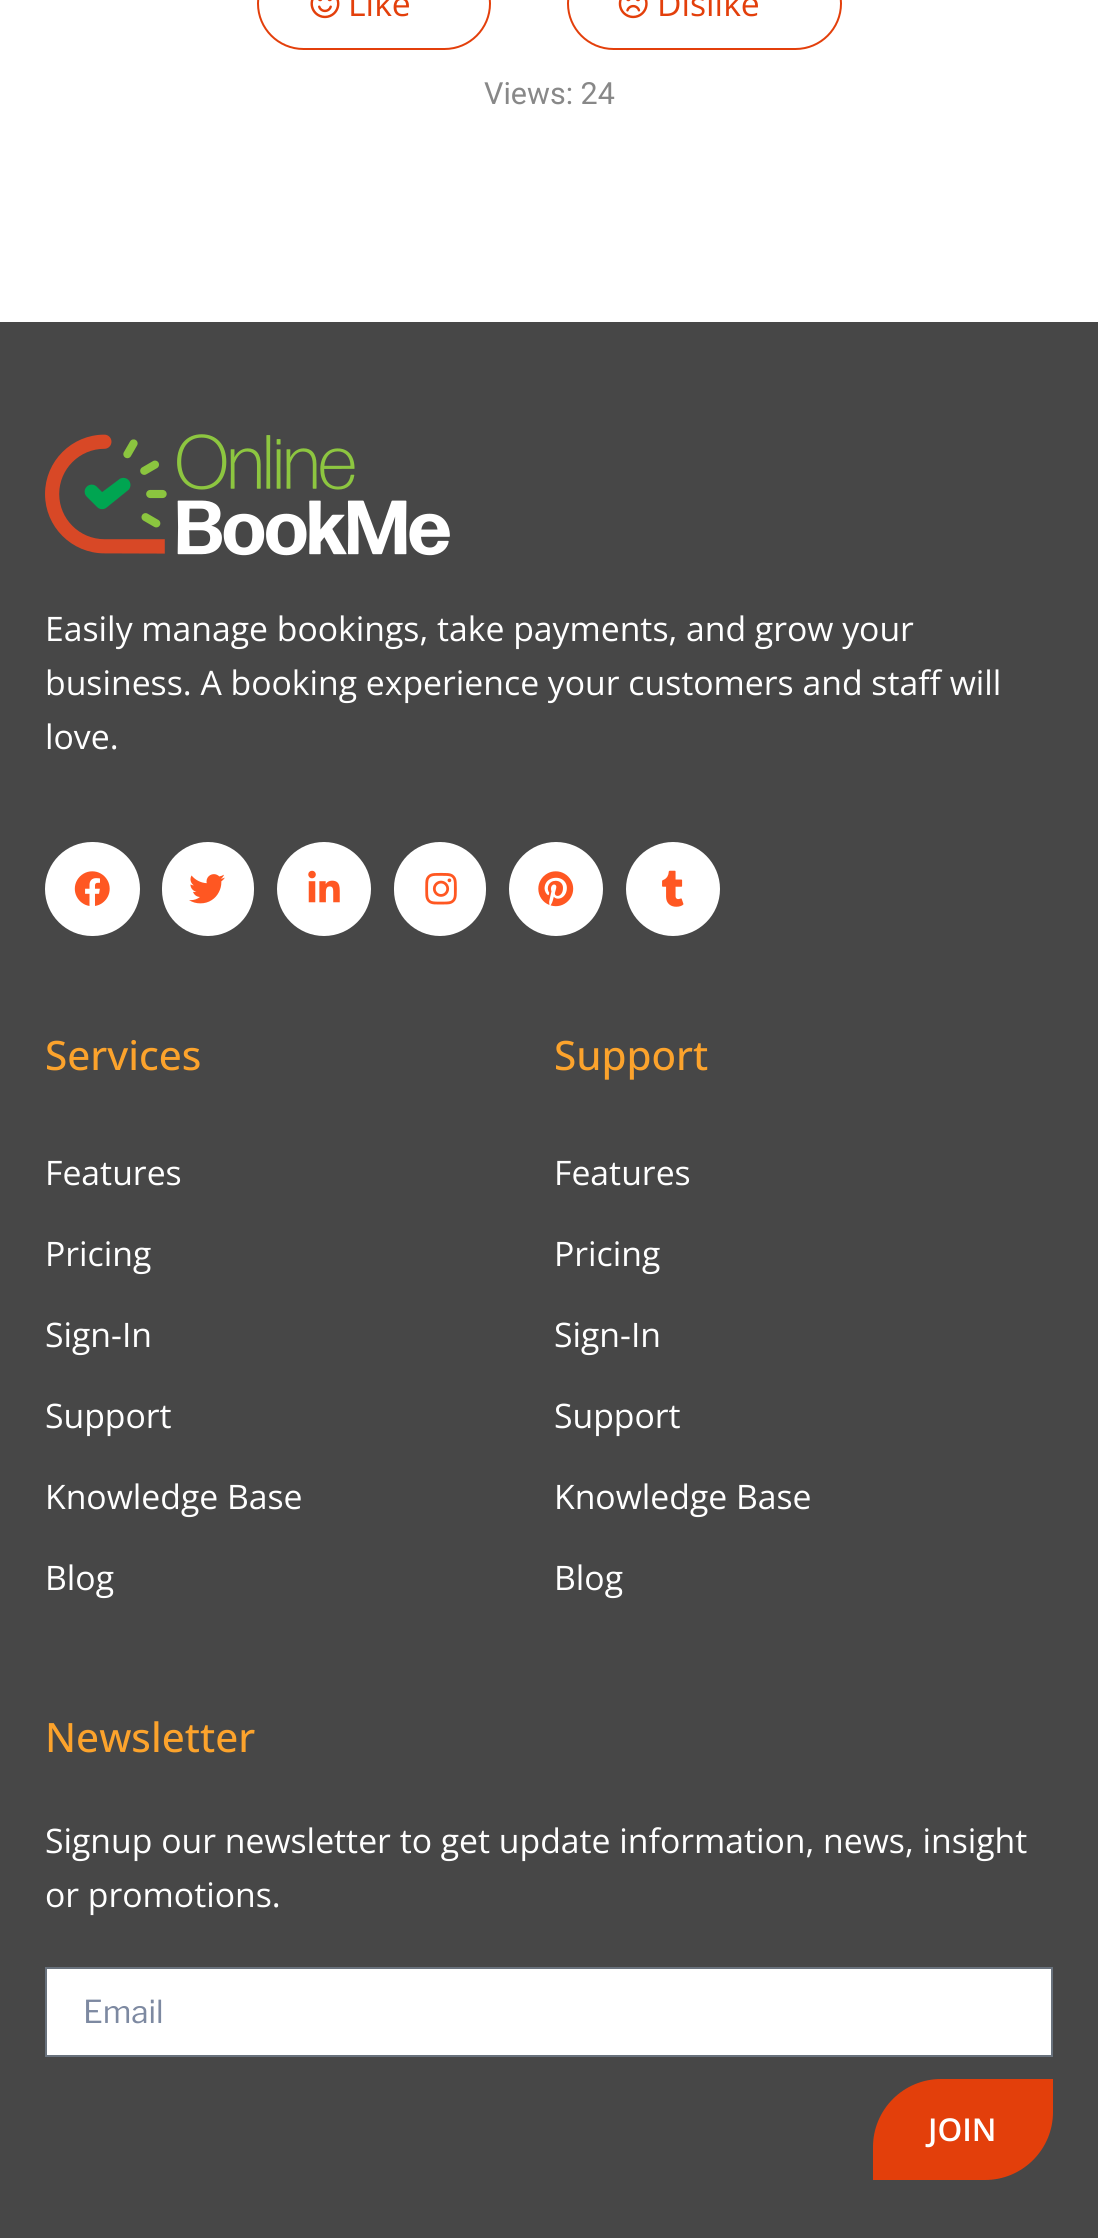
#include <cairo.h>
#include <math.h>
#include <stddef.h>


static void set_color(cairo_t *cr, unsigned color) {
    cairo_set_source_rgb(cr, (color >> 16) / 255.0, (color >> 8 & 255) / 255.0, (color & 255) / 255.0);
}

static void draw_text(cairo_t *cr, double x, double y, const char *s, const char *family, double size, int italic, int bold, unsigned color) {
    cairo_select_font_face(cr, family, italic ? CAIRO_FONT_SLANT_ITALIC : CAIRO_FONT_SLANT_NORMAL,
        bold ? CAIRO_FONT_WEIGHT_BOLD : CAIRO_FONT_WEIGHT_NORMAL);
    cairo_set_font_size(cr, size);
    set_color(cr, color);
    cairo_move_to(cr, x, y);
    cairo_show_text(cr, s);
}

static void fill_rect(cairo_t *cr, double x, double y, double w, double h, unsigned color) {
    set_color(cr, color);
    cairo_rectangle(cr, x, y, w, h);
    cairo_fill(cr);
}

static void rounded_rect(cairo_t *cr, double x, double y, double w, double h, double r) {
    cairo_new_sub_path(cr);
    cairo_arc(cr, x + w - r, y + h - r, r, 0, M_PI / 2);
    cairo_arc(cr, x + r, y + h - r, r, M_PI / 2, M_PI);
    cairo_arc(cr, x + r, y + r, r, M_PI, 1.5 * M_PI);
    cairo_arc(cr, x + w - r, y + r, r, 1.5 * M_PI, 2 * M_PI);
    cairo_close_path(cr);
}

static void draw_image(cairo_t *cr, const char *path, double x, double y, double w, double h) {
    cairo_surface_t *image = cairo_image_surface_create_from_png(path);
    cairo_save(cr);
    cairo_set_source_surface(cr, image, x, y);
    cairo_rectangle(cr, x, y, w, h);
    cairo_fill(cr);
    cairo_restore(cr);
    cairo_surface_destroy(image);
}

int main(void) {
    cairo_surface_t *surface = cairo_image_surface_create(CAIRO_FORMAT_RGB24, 1098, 2238);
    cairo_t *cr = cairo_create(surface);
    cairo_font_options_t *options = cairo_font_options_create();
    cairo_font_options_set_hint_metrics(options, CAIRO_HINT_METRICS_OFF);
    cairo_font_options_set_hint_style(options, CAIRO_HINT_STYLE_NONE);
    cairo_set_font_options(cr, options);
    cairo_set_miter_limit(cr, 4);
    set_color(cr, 0xFFFFFF);
    cairo_paint(cr);
    rounded_rect(cr, 258, -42, 232, 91, 45.5);
    set_color(cr, 0xE33F0B);
    cairo_stroke(cr);
    draw_image(cr, "assets/img1.png", 310, 0, 30, 19);
    draw_text(cr, 348, 16, "Like", "Open Sans", 33.75, 0, 0, 0xE33F0B);
    rounded_rect(cr, 568, -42, 273, 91, 45.5);
    cairo_stroke(cr);
    draw_image(cr, "assets/img2.png", 618, 0, 30, 19);
    draw_text(cr, 657, 16, "Dislike", "Open Sans", 33.75, 0, 0, 0xE33F0B);
    draw_text(cr, 484, 104, "Views: 24", "Roboto", 30.5, 0, 0, 0x888888);
    fill_rect(cr, 0, 322, 1098, 1916, 0x474747);
    draw_image(cr, "assets/img3.png", 45, 434, 405, 122);
    draw_text(cr, 45, 641, "Easily manage bookings, take payments, and grow your", "Open Sans", 33.75, 0, 0, 0xFFFFFF);
    draw_text(cr, 45, 695, "business. A booking experience your customers and staff will", "Open Sans", 33.75, 0, 0, 0xFFFFFF);
    draw_text(cr, 45, 749, "love.", "Open Sans", 33.75, 0, 0, 0xFFFFFF);
    rounded_rect(cr, 45, 842, 95, 94, 47);
    cairo_fill(cr);
    draw_image(cr, "assets/img4.png", 74, 871, 36, 35);
    rounded_rect(cr, 162, 842, 92, 94, 46);
    cairo_fill(cr);
    draw_image(cr, "assets/img5.png", 189, 874, 36, 30);
    cairo_arc(cr, 324, 889, 47, 0, 2 * M_PI);
    cairo_fill(cr);
    draw_image(cr, "assets/img6.png", 308, 870, 32, 33);
    rounded_rect(cr, 394, 842, 92, 94, 46);
    cairo_fill(cr);
    draw_image(cr, "assets/img7.png", 425, 872, 32, 33);
    cairo_arc(cr, 556, 889, 47, 0, 2 * M_PI);
    cairo_fill(cr);
    draw_image(cr, "assets/img8.png", 538, 871, 36, 36);
    cairo_arc(cr, 673, 889, 47, 0, 2 * M_PI);
    cairo_fill(cr);
    draw_image(cr, "assets/img9.png", 662, 870, 22, 37);
    draw_text(cr, 45, 1070, "Services", "Open Sans Medium", 40.5, 0, 0, 0xFCA32C);
    draw_text(cr, 45, 1185, "Features", "Open Sans", 33.75, 0, 0, 0xFFFFFF);
    draw_text(cr, 45, 1266, "Pricing", "Open Sans", 33.75, 0, 0, 0xFFFFFF);
    draw_text(cr, 45, 1347, "Sign-In", "Open Sans", 33.75, 0, 0, 0xFFFFFF);
    draw_text(cr, 45, 1428, "Support", "Open Sans", 33.75, 0, 0, 0xFFFFFF);
    draw_text(cr, 45, 1509, "Knowledge Base", "Open Sans", 33.75, 0, 0, 0xFFFFFF);
    draw_text(cr, 45, 1590, "Blog", "Open Sans", 33.75, 0, 0, 0xFFFFFF);
    draw_text(cr, 554, 1070, "Support", "Open Sans Medium", 40.5, 0, 0, 0xFCA32C);
    draw_text(cr, 554, 1185, "Features", "Open Sans", 33.75, 0, 0, 0xFFFFFF);
    draw_text(cr, 554, 1266, "Pricing", "Open Sans", 33.75, 0, 0, 0xFFFFFF);
    draw_text(cr, 554, 1347, "Sign-In", "Open Sans", 33.75, 0, 0, 0xFFFFFF);
    draw_text(cr, 554, 1428, "Support", "Open Sans", 33.75, 0, 0, 0xFFFFFF);
    draw_text(cr, 554, 1509, "Knowledge Base", "Open Sans", 33.75, 0, 0, 0xFFFFFF);
    draw_text(cr, 554, 1590, "Blog", "Open Sans", 33.75, 0, 0, 0xFFFFFF);
    draw_text(cr, 45, 1752, "Newsletter", "Open Sans Medium", 40.5, 0, 0, 0xFCA32C);
    draw_text(cr, 45, 1853, "Signup our newsletter to get update information, news, insight", "Open Sans", 33.75, 0, 0, 0xFFFFFF);
    draw_text(cr, 45, 1907, "or promotions.", "Open Sans", 33.75, 0, 0, 0xFFFFFF);
    cairo_rectangle(cr, 46, 1968, 1006, 88);
    cairo_fill_preserve(cr);
    set_color(cr, 0x69727D);
    cairo_stroke(cr);
    draw_text(cr, 83, 2023, "Email", "Libre Franklin", 31.5, 0, 0, 0x7D89A1);
    set_color(cr, 0xE33F0B);
    cairo_new_path(cr);
    cairo_move_to(cr, 941, 2079);
    cairo_line_to(cr, 1053, 2079);
    cairo_line_to(cr, 1053, 2112);
    cairo_curve_to(cr, 1053, 2149.5, 1022.5, 2180, 985, 2180);
    cairo_line_to(cr, 873, 2180);
    cairo_line_to(cr, 873, 2147);
    cairo_curve_to(cr, 873, 2109.5, 903.5, 2079, 941, 2079);
    cairo_close_path(cr);
    cairo_fill(cr);
    draw_text(cr, 928, 2141, "JOIN", "Open Sans SemiBold", 31.5, 0, 0, 0xFFFFFF);
    cairo_surface_write_to_png(surface, "output.png");
    cairo_font_options_destroy(options);
    cairo_destroy(cr);
    cairo_surface_destroy(surface);
    return 0;
}
